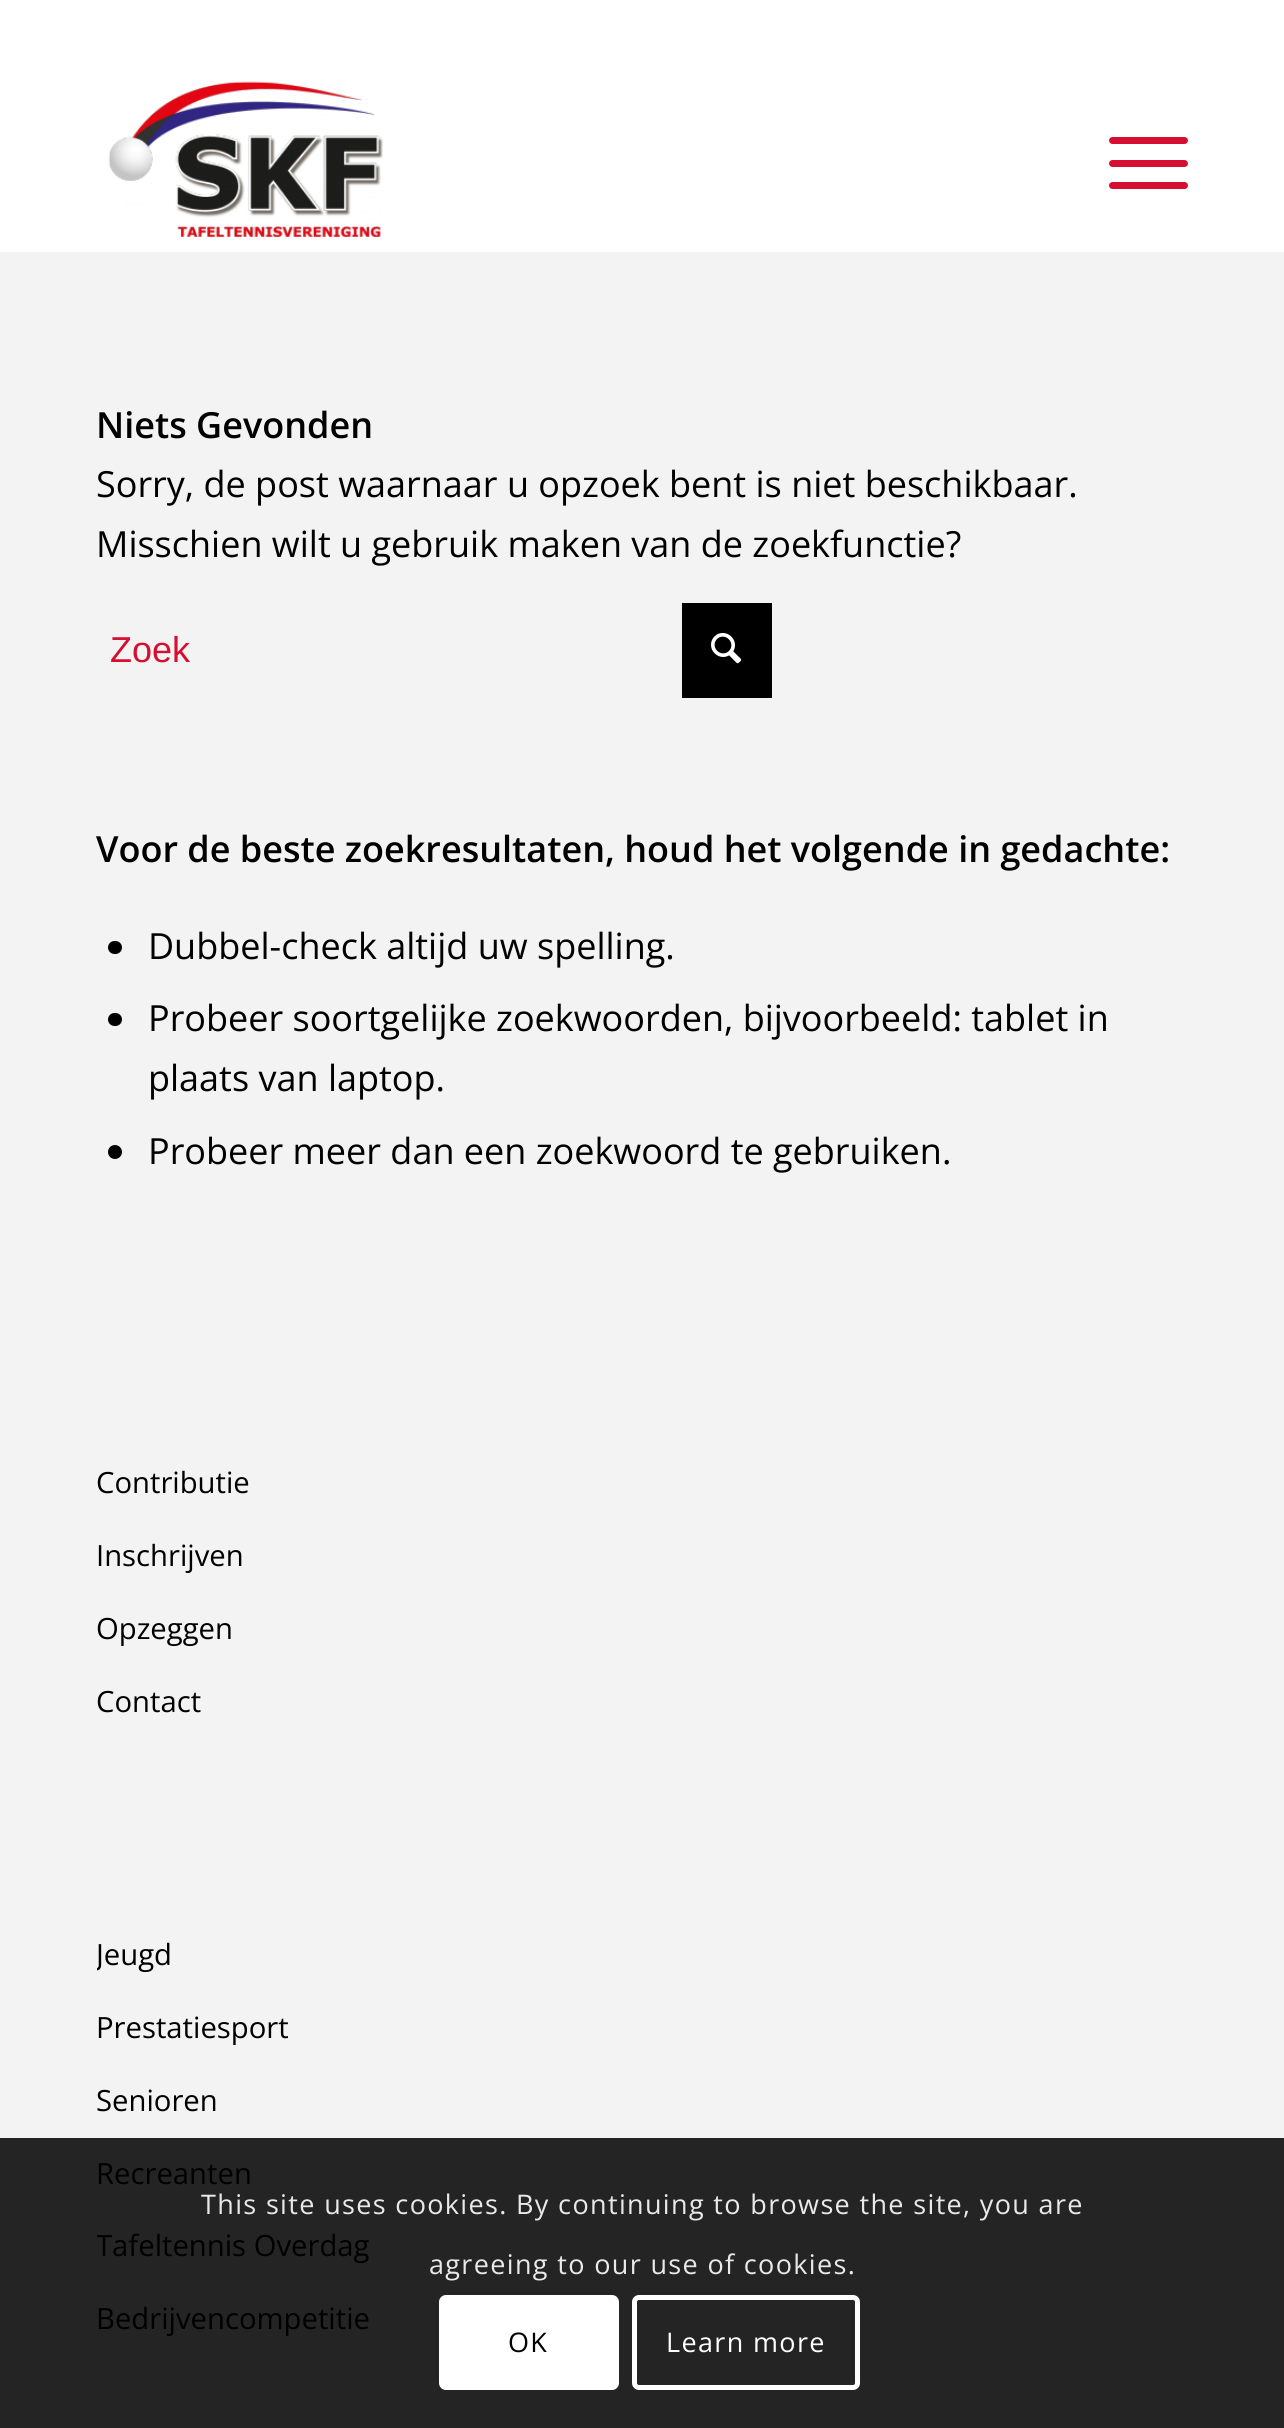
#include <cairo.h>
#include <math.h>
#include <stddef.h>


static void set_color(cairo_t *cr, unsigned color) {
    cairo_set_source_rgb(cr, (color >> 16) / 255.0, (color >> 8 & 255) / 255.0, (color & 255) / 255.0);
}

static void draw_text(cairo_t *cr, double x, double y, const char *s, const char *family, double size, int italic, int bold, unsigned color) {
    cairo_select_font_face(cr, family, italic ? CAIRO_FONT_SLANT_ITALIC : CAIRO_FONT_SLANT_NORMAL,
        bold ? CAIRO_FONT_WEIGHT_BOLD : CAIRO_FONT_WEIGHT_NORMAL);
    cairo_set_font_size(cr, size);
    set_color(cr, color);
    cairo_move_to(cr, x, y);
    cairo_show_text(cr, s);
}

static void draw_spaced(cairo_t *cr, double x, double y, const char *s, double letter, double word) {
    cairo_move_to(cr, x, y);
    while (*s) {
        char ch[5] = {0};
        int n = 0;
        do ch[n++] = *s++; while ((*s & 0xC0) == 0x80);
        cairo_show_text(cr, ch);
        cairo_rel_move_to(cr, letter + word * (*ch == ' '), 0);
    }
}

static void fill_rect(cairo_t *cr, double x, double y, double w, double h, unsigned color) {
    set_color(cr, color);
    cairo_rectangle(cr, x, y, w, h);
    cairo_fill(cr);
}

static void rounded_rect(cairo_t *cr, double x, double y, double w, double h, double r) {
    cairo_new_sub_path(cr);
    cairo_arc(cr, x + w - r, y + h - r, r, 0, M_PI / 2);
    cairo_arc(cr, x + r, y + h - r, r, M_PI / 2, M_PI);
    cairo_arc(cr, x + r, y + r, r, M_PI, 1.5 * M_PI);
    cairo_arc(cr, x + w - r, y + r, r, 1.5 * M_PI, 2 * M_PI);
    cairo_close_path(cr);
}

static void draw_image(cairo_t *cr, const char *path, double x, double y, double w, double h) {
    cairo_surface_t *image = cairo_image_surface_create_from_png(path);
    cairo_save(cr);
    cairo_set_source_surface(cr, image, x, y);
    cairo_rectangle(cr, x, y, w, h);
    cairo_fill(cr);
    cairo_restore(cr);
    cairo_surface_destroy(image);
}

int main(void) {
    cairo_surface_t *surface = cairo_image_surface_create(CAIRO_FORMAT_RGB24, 1284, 2428);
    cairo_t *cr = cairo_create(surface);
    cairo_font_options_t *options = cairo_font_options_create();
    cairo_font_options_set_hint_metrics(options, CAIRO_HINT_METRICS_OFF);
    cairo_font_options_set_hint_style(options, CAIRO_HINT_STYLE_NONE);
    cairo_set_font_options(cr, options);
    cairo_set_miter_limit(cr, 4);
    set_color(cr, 0xF3F3F3);
    cairo_paint(cr);
    fill_rect(cr, 0, 0, 1284, 252, 0xFFFFFF);
    draw_image(cr, "assets/img1.png", 108, 81, 275, 156);
    set_color(cr, 0xD60F30);
    rounded_rect(cr, 1109, 160, 79, 7, 3.5);
    cairo_fill(cr);
    rounded_rect(cr, 1109, 137, 79, 7, 3.5);
    cairo_fill(cr);
    rounded_rect(cr, 1109, 182, 79, 7, 3.5);
    cairo_fill(cr);
    draw_text(cr, 96, 438, "Niets Gevonden", "Open Sans SemiBold", 36, 0, 0, 0x000000);
    draw_text(cr, 96, 497, "Sorry, de post waarnaar u opzoek bent is niet beschikbaar.", "Open Sans", 36, 0, 0, 0x000000);
    draw_text(cr, 96, 557, "Misschien wilt u gebruik maken van de zoekfunctie?", "Open Sans", 36, 0, 0, 0x000000);
    draw_text(cr, 110, 662, "Zoek", "Liberation Sans", 36, 0, 0, 0xD60F30);
    fill_rect(cr, 682, 603, 90, 95, 0x000000);
    draw_image(cr, "assets/img2.png", 711, 633, 31, 31);
    draw_text(cr, 96, 862, "Voor de beste zoekresultaten, houd het volgende in gedachte:", "Open Sans SemiBold", 36, 0, 0, 0x000000);
    rounded_rect(cr, 108, 941, 14, 13, 6.5);
    cairo_fill(cr);
    draw_text(cr, 148, 959, "Dubbel-check altijd uw spelling.", "Open Sans", 36, 0, 0, 0x000000);
    rounded_rect(cr, 108, 1013, 14, 13, 6.5);
    cairo_fill(cr);
    draw_text(cr, 148, 1031, "Probeer soortgelijke zoekwoorden, bijvoorbeeld: tablet in", "Open Sans", 36, 0, 0, 0x000000);
    draw_text(cr, 148, 1091, "plaats van laptop.", "Open Sans", 36, 0, 0, 0x000000);
    cairo_new_path(cr);
    cairo_arc(cr, 115, 1152, 7, 0, 2 * M_PI);
    cairo_fill(cr);
    draw_text(cr, 148, 1164, "Probeer meer dan een zoekwoord te gebruiken.", "Open Sans", 36, 0, 0, 0x000000);
    fill_rect(cr, 0, 2138, 1284, 290, 0x242424);
    draw_text(cr, 96, 1493, "Contributie", "Open Sans", 29.25, 0, 0, 0x000000);
    draw_text(cr, 96, 1566, "Inschrijven", "Open Sans", 29.25, 0, 0, 0x000000);
    draw_text(cr, 96, 1639, "Opzeggen", "Open Sans", 29.25, 0, 0, 0x000000);
    draw_text(cr, 96, 1712, "Contact", "Open Sans", 29.25, 0, 0, 0x000000);
    cairo_save(cr);
    cairo_rectangle(cr, 97, 1919, 1091, 439);
    cairo_clip(cr);
    draw_text(cr, 96, 1965, "Jeugd", "Open Sans", 29.25, 0, 0, 0x000000);
    cairo_restore(cr);
    draw_text(cr, 96, 2038, "Prestatiesport", "Open Sans", 29.25, 0, 0, 0x000000);
    draw_text(cr, 96, 2111, "Senioren", "Open Sans", 29.25, 0, 0, 0x000000);
    draw_text(cr, 96, 2184, "Recreanten", "Open Sans", 29.25, 0, 0, 0x000000);
    cairo_save(cr);
    cairo_rectangle(cr, 97, 1919, 1091, 439);
    cairo_clip(cr);
    draw_text(cr, 96, 2256, "Tafeltennis Overdag", "Open Sans", 29.25, 0, 0, 0x000000);
    cairo_restore(cr);
    draw_text(cr, 96, 2329, "Bedrijvencompetitie", "Open Sans", 29.25, 0, 0, 0x000000);
    cairo_set_font_size(cr, 27);
    set_color(cr, 0xE9E9E9);
    draw_spaced(cr, 201, 2214, "This site uses cookies. By continuing to browse the site, you are", 1.35, 0);
    draw_spaced(cr, 429, 2274, "agreeing to our use of cookies.", 1.35, 0);
    set_color(cr, 0xFFFFFF);
    rounded_rect(cr, 439, 2295, 180, 95, 7);
    cairo_fill(cr);
    set_color(cr, 0x000000);
    draw_spaced(cr, 508, 2352, "OK", 1.35, 0);
    rounded_rect(cr, 634.5, 2297.5, 223, 90, 4.5);
    set_color(cr, 0xFFFFFF);
    cairo_set_line_width(cr, 5);
    cairo_stroke(cr);
    draw_spaced(cr, 666, 2352, "Learn more", 1.35, 0);
    cairo_surface_write_to_png(surface, "output.png");
    cairo_font_options_destroy(options);
    cairo_destroy(cr);
    cairo_surface_destroy(surface);
    return 0;
}
